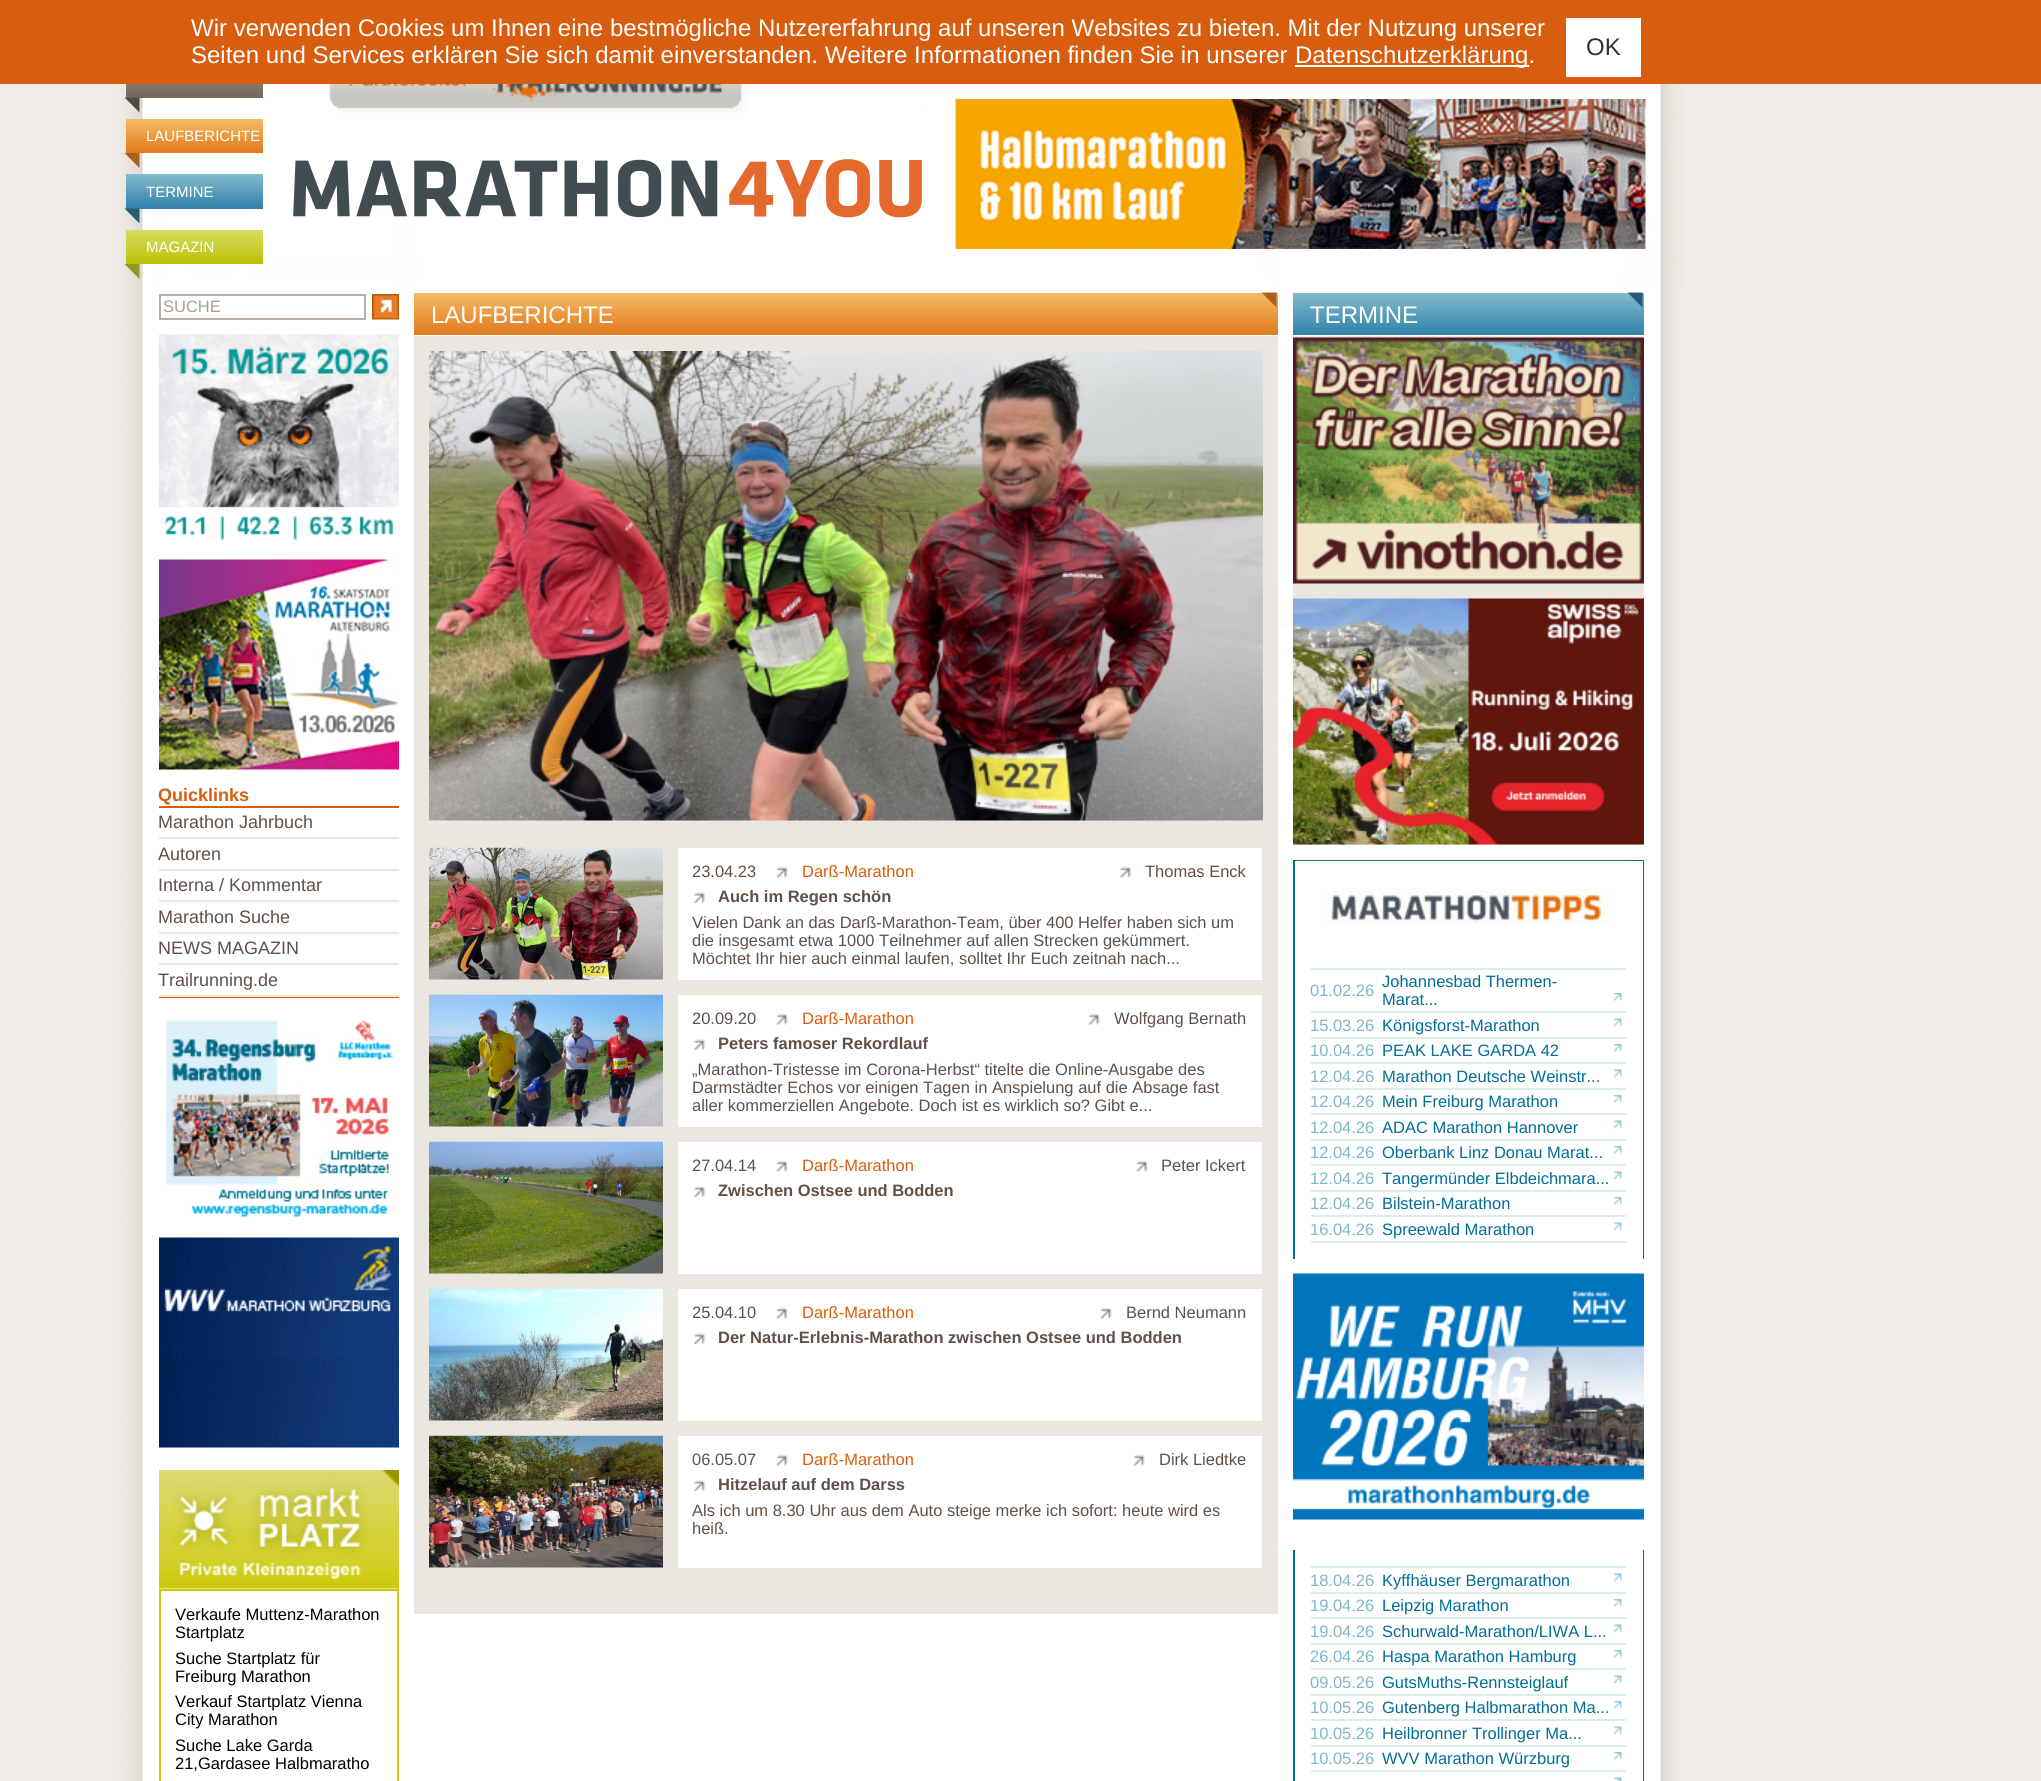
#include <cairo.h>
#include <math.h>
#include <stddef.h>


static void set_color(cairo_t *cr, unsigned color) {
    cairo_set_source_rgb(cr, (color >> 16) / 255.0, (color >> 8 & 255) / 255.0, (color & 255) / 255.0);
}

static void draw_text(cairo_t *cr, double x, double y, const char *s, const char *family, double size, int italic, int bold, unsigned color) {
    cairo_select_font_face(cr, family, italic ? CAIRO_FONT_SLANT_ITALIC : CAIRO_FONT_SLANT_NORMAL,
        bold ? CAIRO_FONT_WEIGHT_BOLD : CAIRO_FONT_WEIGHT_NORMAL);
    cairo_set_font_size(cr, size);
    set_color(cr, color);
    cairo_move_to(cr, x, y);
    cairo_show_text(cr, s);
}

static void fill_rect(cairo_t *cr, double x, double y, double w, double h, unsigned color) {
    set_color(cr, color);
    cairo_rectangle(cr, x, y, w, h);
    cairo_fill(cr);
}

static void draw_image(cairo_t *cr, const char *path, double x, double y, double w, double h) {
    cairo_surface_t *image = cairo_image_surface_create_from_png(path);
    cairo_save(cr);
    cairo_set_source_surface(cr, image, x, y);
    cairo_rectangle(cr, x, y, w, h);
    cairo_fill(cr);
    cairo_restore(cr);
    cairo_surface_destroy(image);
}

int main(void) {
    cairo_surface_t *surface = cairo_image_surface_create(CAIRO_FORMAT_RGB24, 2041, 1781);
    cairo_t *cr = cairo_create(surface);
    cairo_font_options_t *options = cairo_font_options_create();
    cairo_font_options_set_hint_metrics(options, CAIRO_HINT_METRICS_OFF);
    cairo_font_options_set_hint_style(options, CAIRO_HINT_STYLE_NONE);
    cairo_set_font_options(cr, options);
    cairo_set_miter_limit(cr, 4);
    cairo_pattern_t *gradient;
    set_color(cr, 0xF0EBE8);
    cairo_paint(cr);
    fill_rect(cr, 0, 0, 2041, 84, 0xD85D0E);
    draw_text(cr, 191, 36, "Wir verwenden Cookies um Ihnen eine bestmögliche Nutzererfahrung auf unseren Websites zu bieten. Mit der Nutzung unserer", "Liberation Sans", 24, 0, 0, 0xFFFFFF);
    draw_text(cr, 191, 63, "Seiten und Services erklären Sie sich damit einverstanden. Weitere Informationen finden Sie in unserer", "Liberation Sans", 24, 0, 0, 0xFFFFFF);
    fill_rect(cr, 1295, 65, 234, 2, 0xFFFFFF);
    draw_text(cr, 1295, 63, "Datenschutzerklärung.", "Liberation Sans", 24, 0, 0, 0xFFFFFF);
    fill_rect(cr, 1566, 18, 75, 59, 0xFFFFFF);
    draw_text(cr, 1586, 55, "OK", "Liberation Sans", 24, 0, 0, 0x333333);
    draw_image(cr, "assets/img1.png", 117, 286, 1561, 1495);
    draw_image(cr, "assets/img2.png", 117, 84, 1566, 202);
    gradient = cairo_pattern_create_linear(194, 63, 194, 98);
    cairo_pattern_add_color_stop_rgba(gradient, 0, 0.612, 0.569, 0.533, 1);
    cairo_pattern_add_color_stop_rgba(gradient, 1, 0.455, 0.4, 0.357, 1);
    cairo_set_source(cr, gradient);
    cairo_pattern_destroy(gradient);
    cairo_rectangle(cr, 126, 84, 137, 14);
    cairo_fill(cr);
    set_color(cr, 0x534942);
    cairo_new_path(cr);
    cairo_move_to(cr, 139.5, 112.5);
    cairo_line_to(cr, 124.5, 97.5);
    cairo_line_to(cr, 139.5, 97.5);
    cairo_close_path(cr);
    cairo_fill(cr);
    gradient = cairo_pattern_create_linear(194, 119, 194, 153);
    cairo_pattern_add_color_stop_rgba(gradient, 0, 0.961, 0.733, 0.388, 1);
    cairo_pattern_add_color_stop_rgba(gradient, 1, 0.882, 0.478, 0.118, 1);
    cairo_set_source(cr, gradient);
    cairo_pattern_destroy(gradient);
    cairo_rectangle(cr, 126, 119, 137, 34);
    cairo_fill(cr);
    draw_text(cr, 146, 141, "LAUFBERICHTE", "Liberation Sans", 15, 0, 0, 0xFFFFFF);
    set_color(cr, 0xAE6018);
    cairo_new_path(cr);
    cairo_move_to(cr, 139.5, 168);
    cairo_line_to(cr, 124.5, 153);
    cairo_line_to(cr, 139.5, 153);
    cairo_close_path(cr);
    cairo_fill(cr);
    gradient = cairo_pattern_create_linear(194, 174, 194, 209);
    cairo_pattern_add_color_stop_rgba(gradient, 0, 0.518, 0.733, 0.804, 1);
    cairo_pattern_add_color_stop_rgba(gradient, 1, 0.184, 0.506, 0.663, 1);
    cairo_set_source(cr, gradient);
    cairo_pattern_destroy(gradient);
    cairo_rectangle(cr, 126, 174, 137, 35);
    cairo_fill(cr);
    draw_text(cr, 146, 197, "TERMINE", "Liberation Sans", 15, 0, 0, 0xFFFFFF);
    set_color(cr, 0x235C77);
    cairo_new_path(cr);
    cairo_move_to(cr, 139.5, 223.5);
    cairo_line_to(cr, 124.5, 208.5);
    cairo_line_to(cr, 139.5, 208.5);
    cairo_close_path(cr);
    cairo_fill(cr);
    gradient = cairo_pattern_create_linear(194, 230, 194, 264);
    cairo_pattern_add_color_stop_rgba(gradient, 0, 0.843, 0.871, 0.38, 1);
    cairo_pattern_add_color_stop_rgba(gradient, 1, 0.741, 0.749, 0.031, 1);
    cairo_set_source(cr, gradient);
    cairo_pattern_destroy(gradient);
    cairo_rectangle(cr, 126, 230, 137, 34);
    cairo_fill(cr);
    draw_text(cr, 146, 252, "MAGAZIN", "Liberation Sans", 15, 0, 0, 0xFFFFFF);
    set_color(cr, 0x91971F);
    cairo_new_path(cr);
    cairo_move_to(cr, 139.5, 279);
    cairo_line_to(cr, 124.5, 264);
    cairo_line_to(cr, 139.5, 264);
    cairo_close_path(cr);
    cairo_fill(cr);
    draw_image(cr, "assets/img3.png", 328, 84, 421, 29);
    draw_image(cr, "assets/img4.png", 293, 159, 629, 59);
    draw_image(cr, "assets/img5.png", 955, 99, 691, 150);
    cairo_rectangle(cr, 160, 295, 205, 24);
    set_color(cr, 0xB7AEA7);
    cairo_stroke(cr);
    draw_text(cr, 163, 312, "SUCHE", "Liberation Sans", 16.5, 0, 0, 0xA89E96);
    draw_image(cr, "assets/img6.png", 372, 294, 27, 26);
    draw_image(cr, "assets/img7.png", 159, 334, 240, 207);
    draw_image(cr, "assets/img8.png", 159, 559, 240, 211);
    fill_rect(cr, 159, 997, 240, 1, 0xD85D0E);
    fill_rect(cr, 159, 806, 240, 2, 0xD85D0E);
    draw_text(cr, 158, 801, "Quicklinks", "Liberation Sans", 18, 0, 1, 0xD85D0E);
    fill_rect(cr, 159, 837, 240, 2, 0xEAE7E0);
    draw_text(cr, 158, 828, "Marathon Jahrbuch", "Liberation Sans", 18, 0, 0, 0x605046);
    fill_rect(cr, 159, 869, 240, 2, 0xEAE7E0);
    draw_text(cr, 158, 860, "Autoren", "Liberation Sans", 18, 0, 0, 0x605046);
    fill_rect(cr, 159, 900, 240, 2, 0xEAE7E0);
    draw_text(cr, 158, 891, "Interna / Kommentar", "Liberation Sans", 18, 0, 0, 0x605046);
    fill_rect(cr, 159, 932, 240, 2, 0xEAE7E0);
    draw_text(cr, 158, 923, "Marathon Suche", "Liberation Sans", 18, 0, 0, 0x605046);
    fill_rect(cr, 159, 963, 240, 2, 0xEAE7E0);
    draw_text(cr, 158, 954, "NEWS MAGAZIN", "Liberation Sans", 18, 0, 0, 0x605046);
    fill_rect(cr, 159, 995, 240, 2, 0xEAE7E0);
    draw_text(cr, 158, 986, "Trailrunning.de", "Liberation Sans", 18, 0, 0, 0x605046);
    draw_image(cr, "assets/img9.png", 165, 1019, 229, 198);
    draw_image(cr, "assets/img10.png", 159, 1237, 240, 211);
    draw_image(cr, "assets/img11.png", 159, 1470, 240, 119);
    cairo_rectangle(cr, 160, 1590, 238, 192);
    set_color(cr, 0xCDC906);
    cairo_stroke(cr);
    draw_text(cr, 175, 1620, "Verkaufe Muttenz-Marathon", "Liberation Sans", 16.5, 0, 0, 0x000000);
    draw_text(cr, 175, 1638, "Startplatz", "Liberation Sans", 16.5, 0, 0, 0x000000);
    draw_text(cr, 175, 1664, "Suche Startplatz für", "Liberation Sans", 16.5, 0, 0, 0x000000);
    draw_text(cr, 175, 1682, "Freiburg Marathon", "Liberation Sans", 16.5, 0, 0, 0x000000);
    draw_text(cr, 175, 1707, "Verkauf Startplatz Vienna", "Liberation Sans", 16.5, 0, 0, 0x000000);
    draw_text(cr, 175, 1725, "City Marathon", "Liberation Sans", 16.5, 0, 0, 0x000000);
    draw_text(cr, 175, 1751, "Suche Lake Garda", "Liberation Sans", 16.5, 0, 0, 0x000000);
    draw_text(cr, 175, 1769, "21,Gardasee Halbmaratho", "Liberation Sans", 16.5, 0, 0, 0x000000);
    fill_rect(cr, 414, 336, 864, 1278, 0xEAE7E0);
    gradient = cairo_pattern_create_linear(846, 292, 846, 335);
    cairo_pattern_add_color_stop_rgba(gradient, 0, 0.961, 0.733, 0.388, 1);
    cairo_pattern_add_color_stop_rgba(gradient, 1, 0.882, 0.478, 0.118, 1);
    cairo_set_source(cr, gradient);
    cairo_pattern_destroy(gradient);
    cairo_rectangle(cr, 414, 293, 864, 42);
    cairo_fill(cr);
    set_color(cr, 0xAE6018);
    cairo_new_path(cr);
    cairo_move_to(cr, 1276.5, 307.5);
    cairo_line_to(cr, 1261.5, 292.5);
    cairo_line_to(cr, 1276.5, 292.5);
    cairo_close_path(cr);
    cairo_fill(cr);
    draw_text(cr, 431, 323, "LAUFBERICHTE", "Liberation Sans", 24, 0, 0, 0xFFFFFF);
    draw_image(cr, "assets/img12.png", 429, 351, 834, 470);
    draw_image(cr, "assets/img13.png", 429, 847, 234, 133);
    fill_rect(cr, 678, 848, 584, 132, 0xFFFFFF);
    draw_text(cr, 692, 877, "23.04.23", "Liberation Sans", 16.5, 0, 0, 0x605046);
    draw_image(cr, "assets/img14.png", 776, 866, 12, 12);
    draw_text(cr, 802, 877, "Darß-Marathon", "Liberation Sans", 16.5, 0, 0, 0xD85D0E);
    draw_image(cr, "assets/img15.png", 1120, 866, 12, 12);
    draw_text(cr, 1145, 877, "Thomas Enck", "Liberation Sans", 16.5, 0, 0, 0x605046);
    draw_image(cr, "assets/img16.png", 694, 892, 12, 11);
    draw_text(cr, 718, 902, "Auch im Regen schön", "Liberation Sans", 16.5, 0, 1, 0x605046);
    draw_text(cr, 692, 928, "Vielen Dank an das Darß-Marathon-Team, über 400 Helfer haben sich um", "Liberation Sans", 16.5, 0, 0, 0x605046);
    draw_text(cr, 692, 946, "die insgesamt etwa 1000 Teilnehmer auf allen Strecken gekümmert.", "Liberation Sans", 16.5, 0, 0, 0x605046);
    draw_text(cr, 692, 964, "Möchtet Ihr hier auch einmal laufen, solltet Ihr Euch zeitnah nach...", "Liberation Sans", 16.5, 0, 0, 0x605046);
    draw_image(cr, "assets/img17.png", 429, 994, 234, 133);
    fill_rect(cr, 678, 995, 584, 132, 0xFFFFFF);
    draw_text(cr, 692, 1024, "20.09.20", "Liberation Sans", 16.5, 0, 0, 0x605046);
    draw_image(cr, "assets/img14.png", 776, 1013, 12, 12);
    draw_text(cr, 802, 1024, "Darß-Marathon", "Liberation Sans", 16.5, 0, 0, 0xD85D0E);
    draw_image(cr, "assets/img14.png", 1088, 1013, 12, 12);
    draw_text(cr, 1114, 1024, "Wolfgang Bernath", "Liberation Sans", 16.5, 0, 0, 0x605046);
    draw_image(cr, "assets/img16.png", 694, 1039, 12, 11);
    draw_text(cr, 718, 1049, "Peters famoser Rekordlauf", "Liberation Sans", 16.5, 0, 1, 0x605046);
    draw_text(cr, 692, 1075, "„Marathon-Tristesse im Corona-Herbst“ titelte die Online-Ausgabe des", "Liberation Sans", 16.5, 0, 0, 0x605046);
    draw_text(cr, 692, 1093, "Darmstädter Echos vor einigen Tagen in Anspielung auf die Absage fast", "Liberation Sans", 16.5, 0, 0, 0x605046);
    draw_text(cr, 692, 1111, "aller kommerziellen Angebote. Doch ist es wirklich so? Gibt e...", "Liberation Sans", 16.5, 0, 0, 0x605046);
    draw_image(cr, "assets/img18.png", 429, 1141, 234, 133);
    fill_rect(cr, 678, 1142, 584, 132, 0xFFFFFF);
    draw_text(cr, 692, 1171, "27.04.14", "Liberation Sans", 16.5, 0, 0, 0x605046);
    draw_image(cr, "assets/img14.png", 776, 1160, 12, 12);
    draw_text(cr, 802, 1171, "Darß-Marathon", "Liberation Sans", 16.5, 0, 0, 0xD85D0E);
    draw_image(cr, "assets/img19.png", 1136, 1160, 12, 12);
    draw_text(cr, 1161, 1171, "Peter Ickert", "Liberation Sans", 16.5, 0, 0, 0x605046);
    draw_image(cr, "assets/img16.png", 694, 1186, 12, 11);
    draw_text(cr, 718, 1196, "Zwischen Ostsee und Bodden", "Liberation Sans", 16.5, 0, 1, 0x605046);
    draw_image(cr, "assets/img20.png", 429, 1288, 234, 133);
    fill_rect(cr, 678, 1289, 584, 132, 0xFFFFFF);
    draw_text(cr, 692, 1318, "25.04.10", "Liberation Sans", 16.5, 0, 0, 0x605046);
    draw_image(cr, "assets/img14.png", 776, 1307, 12, 12);
    draw_text(cr, 802, 1318, "Darß-Marathon", "Liberation Sans", 16.5, 0, 0, 0xD85D0E);
    draw_image(cr, "assets/img14.png", 1100, 1307, 12, 12);
    draw_text(cr, 1126, 1318, "Bernd Neumann", "Liberation Sans", 16.5, 0, 0, 0x605046);
    draw_image(cr, "assets/img16.png", 694, 1333, 12, 11);
    draw_text(cr, 718, 1343, "Der Natur-Erlebnis-Marathon zwischen Ostsee und Bodden", "Liberation Sans", 16.5, 0, 1, 0x605046);
    draw_image(cr, "assets/img21.png", 429, 1435, 234, 133);
    fill_rect(cr, 678, 1436, 584, 132, 0xFFFFFF);
    draw_text(cr, 692, 1465, "06.05.07", "Liberation Sans", 16.5, 0, 0, 0x605046);
    draw_image(cr, "assets/img14.png", 776, 1454, 12, 12);
    draw_text(cr, 802, 1465, "Darß-Marathon", "Liberation Sans", 16.5, 0, 0, 0xD85D0E);
    draw_image(cr, "assets/img19.png", 1133, 1454, 12, 12);
    draw_text(cr, 1159, 1465, "Dirk Liedtke", "Liberation Sans", 16.5, 0, 0, 0x605046);
    draw_image(cr, "assets/img16.png", 694, 1480, 12, 11);
    draw_text(cr, 718, 1490, "Hitzelauf auf dem Darss", "Liberation Sans", 16.5, 0, 1, 0x605046);
    draw_text(cr, 692, 1516, "Als ich um 8.30 Uhr aus dem Auto steige merke ich sofort: heute wird es", "Liberation Sans", 16.5, 0, 0, 0x605046);
    draw_text(cr, 692, 1534, "heiß.", "Liberation Sans", 16.5, 0, 0, 0x605046);
    fill_rect(cr, 1293, 336, 351, 509, 0xEAE7E0);
    gradient = cairo_pattern_create_linear(1469, 293, 1469, 335);
    cairo_pattern_add_color_stop_rgba(gradient, 0, 0.518, 0.733, 0.804, 1);
    cairo_pattern_add_color_stop_rgba(gradient, 1, 0.184, 0.506, 0.663, 1);
    cairo_set_source(cr, gradient);
    cairo_pattern_destroy(gradient);
    cairo_rectangle(cr, 1293, 293, 351, 42);
    cairo_fill(cr);
    set_color(cr, 0x235C77);
    cairo_new_path(cr);
    cairo_move_to(cr, 1642.5, 307.5);
    cairo_line_to(cr, 1627.5, 292.5);
    cairo_line_to(cr, 1642.5, 292.5);
    cairo_close_path(cr);
    cairo_fill(cr);
    draw_text(cr, 1310, 323, "TERMINE", "Liberation Sans", 24, 0, 0, 0xFFFFFF);
    draw_image(cr, "assets/img22.png", 1293, 337, 351, 247);
    draw_image(cr, "assets/img23.png", 1293, 598, 351, 247);
    fill_rect(cr, 1293, 860, 351, 399, 0x006E97);
    fill_rect(cr, 1295, 861, 348, 398, 0xFFFFFF);
    draw_image(cr, "assets/img24.png", 1322, 888, 288, 36);
    fill_rect(cr, 1311, 968, 315, 2, 0xDBECED);
    draw_text(cr, 1310, 996, "01.02.26", "Liberation Sans", 16.5, 0, 0, 0x7EB6C9);
    draw_text(cr, 1382, 987, "Johannesbad Thermen-", "Liberation Sans", 16.5, 0, 0, 0x006E97);
    draw_text(cr, 1382, 1005, "Marat...", "Liberation Sans", 16.5, 0, 0, 0x006E97);
    draw_image(cr, "assets/img25.png", 1614, 993, 8, 8);
    fill_rect(cr, 1311, 1011, 315, 2, 0xDBECED);
    draw_text(cr, 1310, 1031, "15.03.26", "Liberation Sans", 16.5, 0, 0, 0x7EB6C9);
    draw_text(cr, 1382, 1031, "Königsforst-Marathon", "Liberation Sans", 16.5, 0, 0, 0x006E97);
    draw_image(cr, "assets/img26.png", 1614, 1018, 8, 9);
    fill_rect(cr, 1311, 1037, 315, 2, 0xDBECED);
    draw_text(cr, 1310, 1056, "10.04.26", "Liberation Sans", 16.5, 0, 0, 0x7EB6C9);
    draw_text(cr, 1382, 1056, "PEAK LAKE GARDA 42", "Liberation Sans", 16.5, 0, 0, 0x006E97);
    draw_image(cr, "assets/img25.png", 1614, 1044, 8, 8);
    fill_rect(cr, 1311, 1062, 315, 2, 0xDBECED);
    draw_text(cr, 1310, 1082, "12.04.26", "Liberation Sans", 16.5, 0, 0, 0x7EB6C9);
    draw_text(cr, 1382, 1082, "Marathon Deutsche Weinstr...", "Liberation Sans", 16.5, 0, 0, 0x006E97);
    draw_image(cr, "assets/img26.png", 1614, 1069, 8, 9);
    fill_rect(cr, 1311, 1088, 315, 2, 0xDBECED);
    draw_text(cr, 1310, 1107, "12.04.26", "Liberation Sans", 16.5, 0, 0, 0x7EB6C9);
    draw_text(cr, 1382, 1107, "Mein Freiburg Marathon", "Liberation Sans", 16.5, 0, 0, 0x006E97);
    draw_image(cr, "assets/img25.png", 1614, 1095, 8, 8);
    fill_rect(cr, 1311, 1113, 315, 2, 0xDBECED);
    draw_text(cr, 1310, 1133, "12.04.26", "Liberation Sans", 16.5, 0, 0, 0x7EB6C9);
    draw_text(cr, 1382, 1133, "ADAC Marathon Hannover", "Liberation Sans", 16.5, 0, 0, 0x006E97);
    draw_image(cr, "assets/img26.png", 1614, 1120, 8, 9);
    fill_rect(cr, 1311, 1139, 315, 2, 0xDBECED);
    draw_text(cr, 1310, 1158, "12.04.26", "Liberation Sans", 16.5, 0, 0, 0x7EB6C9);
    draw_text(cr, 1382, 1158, "Oberbank Linz Donau Marat...", "Liberation Sans", 16.5, 0, 0, 0x006E97);
    draw_image(cr, "assets/img25.png", 1614, 1146, 8, 8);
    fill_rect(cr, 1311, 1164, 315, 2, 0xDBECED);
    draw_text(cr, 1310, 1184, "12.04.26", "Liberation Sans", 16.5, 0, 0, 0x7EB6C9);
    draw_text(cr, 1382, 1184, "Tangermünder Elbdeichmara...", "Liberation Sans", 16.5, 0, 0, 0x006E97);
    draw_image(cr, "assets/img26.png", 1614, 1171, 8, 9);
    fill_rect(cr, 1311, 1190, 315, 2, 0xDBECED);
    draw_text(cr, 1310, 1209, "12.04.26", "Liberation Sans", 16.5, 0, 0, 0x7EB6C9);
    draw_text(cr, 1382, 1209, "Bilstein-Marathon", "Liberation Sans", 16.5, 0, 0, 0x006E97);
    draw_image(cr, "assets/img25.png", 1614, 1197, 8, 8);
    fill_rect(cr, 1311, 1215, 315, 2, 0xDBECED);
    draw_text(cr, 1310, 1235, "16.04.26", "Liberation Sans", 16.5, 0, 0, 0x7EB6C9);
    draw_text(cr, 1382, 1235, "Spreewald Marathon", "Liberation Sans", 16.5, 0, 0, 0x006E97);
    draw_image(cr, "assets/img26.png", 1614, 1222, 8, 9);
    fill_rect(cr, 1311, 1241, 315, 2, 0xDBECED);
    draw_image(cr, "assets/img27.png", 1293, 1273, 351, 247);
    fill_rect(cr, 1293, 1550, 351, 231, 0x006E97);
    fill_rect(cr, 1295, 1550, 348, 231, 0xFFFFFF);
    fill_rect(cr, 1311, 1566, 315, 2, 0xDBECED);
    draw_text(cr, 1310, 1586, "18.04.26", "Liberation Sans", 16.5, 0, 0, 0x7EB6C9);
    draw_text(cr, 1382, 1586, "Kyffhäuser Bergmarathon", "Liberation Sans", 16.5, 0, 0, 0x006E97);
    draw_image(cr, "assets/img26.png", 1614, 1573, 8, 9);
    fill_rect(cr, 1311, 1592, 315, 2, 0xDBECED);
    draw_text(cr, 1310, 1611, "19.04.26", "Liberation Sans", 16.5, 0, 0, 0x7EB6C9);
    draw_text(cr, 1382, 1611, "Leipzig Marathon", "Liberation Sans", 16.5, 0, 0, 0x006E97);
    draw_image(cr, "assets/img25.png", 1614, 1599, 8, 8);
    fill_rect(cr, 1311, 1617, 315, 2, 0xDBECED);
    draw_text(cr, 1310, 1637, "19.04.26", "Liberation Sans", 16.5, 0, 0, 0x7EB6C9);
    draw_text(cr, 1382, 1637, "Schurwald-Marathon/LIWA L...", "Liberation Sans", 16.5, 0, 0, 0x006E97);
    draw_image(cr, "assets/img26.png", 1614, 1624, 8, 9);
    fill_rect(cr, 1311, 1643, 315, 2, 0xDBECED);
    draw_text(cr, 1310, 1662, "26.04.26", "Liberation Sans", 16.5, 0, 0, 0x7EB6C9);
    draw_text(cr, 1382, 1662, "Haspa Marathon Hamburg", "Liberation Sans", 16.5, 0, 0, 0x006E97);
    draw_image(cr, "assets/img25.png", 1614, 1650, 8, 8);
    fill_rect(cr, 1311, 1668, 315, 2, 0xDBECED);
    draw_text(cr, 1310, 1688, "09.05.26", "Liberation Sans", 16.5, 0, 0, 0x7EB6C9);
    draw_text(cr, 1382, 1688, "GutsMuths-Rennsteiglauf", "Liberation Sans", 16.5, 0, 0, 0x006E97);
    draw_image(cr, "assets/img26.png", 1614, 1675, 8, 9);
    fill_rect(cr, 1311, 1694, 315, 2, 0xDBECED);
    draw_text(cr, 1310, 1713, "10.05.26", "Liberation Sans", 16.5, 0, 0, 0x7EB6C9);
    draw_text(cr, 1382, 1713, "Gutenberg Halbmarathon Ma...", "Liberation Sans", 16.5, 0, 0, 0x006E97);
    draw_image(cr, "assets/img25.png", 1614, 1701, 8, 8);
    fill_rect(cr, 1311, 1719, 315, 2, 0xDBECED);
    draw_text(cr, 1310, 1739, "10.05.26", "Liberation Sans", 16.5, 0, 0, 0x7EB6C9);
    draw_text(cr, 1382, 1739, "Heilbronner Trollinger Ma...", "Liberation Sans", 16.5, 0, 0, 0x006E97);
    draw_image(cr, "assets/img26.png", 1614, 1726, 8, 9);
    fill_rect(cr, 1311, 1745, 315, 2, 0xDBECED);
    draw_text(cr, 1310, 1764, "10.05.26", "Liberation Sans", 16.5, 0, 0, 0x7EB6C9);
    draw_text(cr, 1382, 1764, "WVV Marathon Würzburg", "Liberation Sans", 16.5, 0, 0, 0x006E97);
    draw_image(cr, "assets/img25.png", 1614, 1752, 8, 8);
    fill_rect(cr, 1311, 1770, 315, 2, 0xDBECED);
    draw_image(cr, "assets/img28.png", 1614, 1777, 8, 4);
    cairo_surface_write_to_png(surface, "output.png");
    cairo_font_options_destroy(options);
    cairo_destroy(cr);
    cairo_surface_destroy(surface);
    return 0;
}
